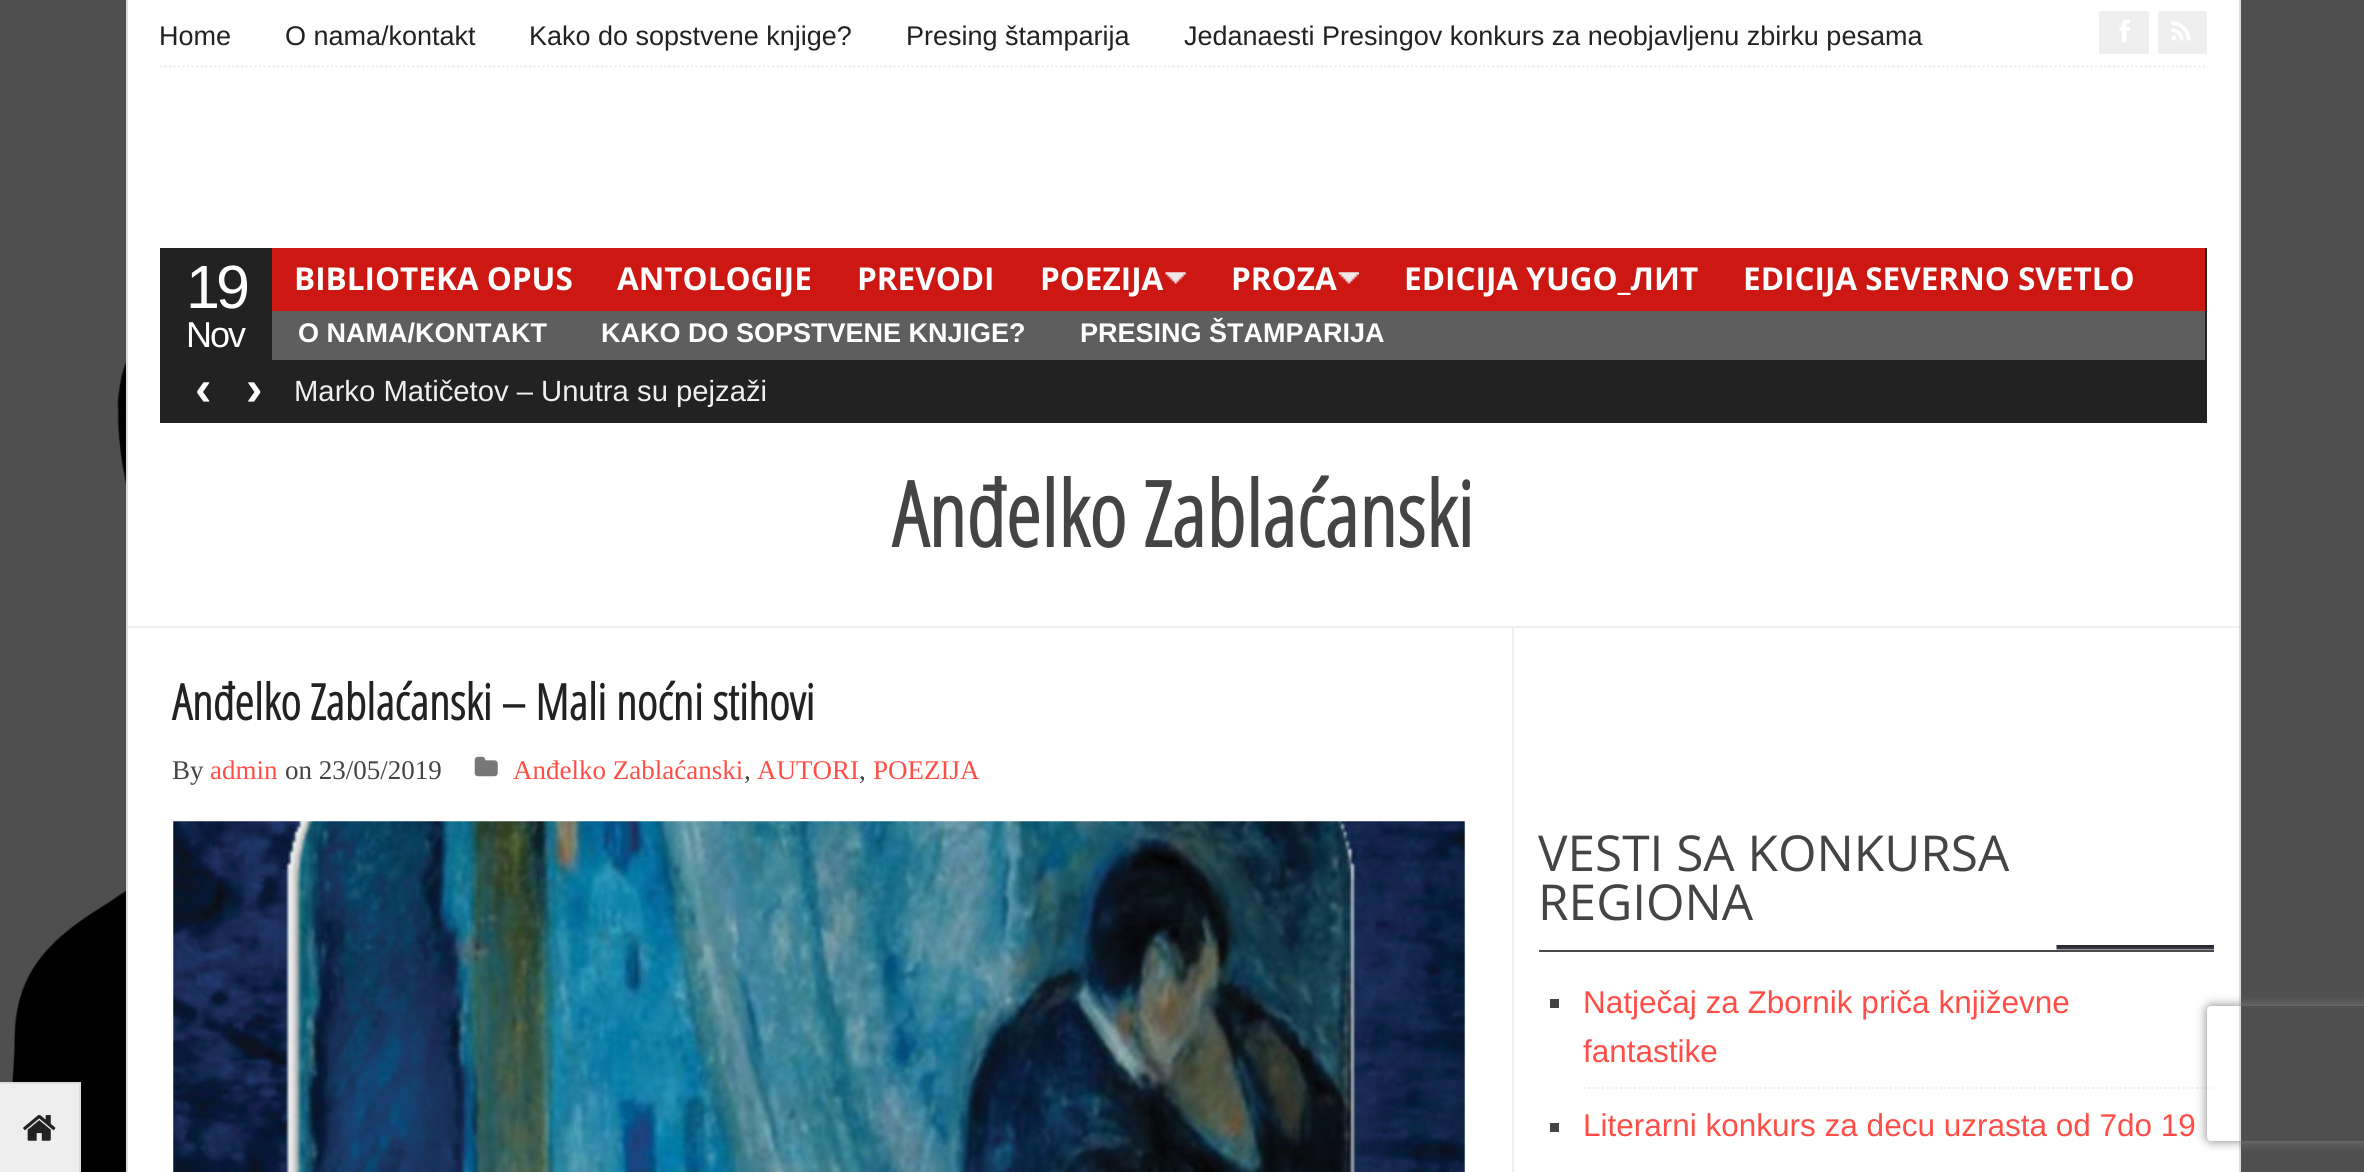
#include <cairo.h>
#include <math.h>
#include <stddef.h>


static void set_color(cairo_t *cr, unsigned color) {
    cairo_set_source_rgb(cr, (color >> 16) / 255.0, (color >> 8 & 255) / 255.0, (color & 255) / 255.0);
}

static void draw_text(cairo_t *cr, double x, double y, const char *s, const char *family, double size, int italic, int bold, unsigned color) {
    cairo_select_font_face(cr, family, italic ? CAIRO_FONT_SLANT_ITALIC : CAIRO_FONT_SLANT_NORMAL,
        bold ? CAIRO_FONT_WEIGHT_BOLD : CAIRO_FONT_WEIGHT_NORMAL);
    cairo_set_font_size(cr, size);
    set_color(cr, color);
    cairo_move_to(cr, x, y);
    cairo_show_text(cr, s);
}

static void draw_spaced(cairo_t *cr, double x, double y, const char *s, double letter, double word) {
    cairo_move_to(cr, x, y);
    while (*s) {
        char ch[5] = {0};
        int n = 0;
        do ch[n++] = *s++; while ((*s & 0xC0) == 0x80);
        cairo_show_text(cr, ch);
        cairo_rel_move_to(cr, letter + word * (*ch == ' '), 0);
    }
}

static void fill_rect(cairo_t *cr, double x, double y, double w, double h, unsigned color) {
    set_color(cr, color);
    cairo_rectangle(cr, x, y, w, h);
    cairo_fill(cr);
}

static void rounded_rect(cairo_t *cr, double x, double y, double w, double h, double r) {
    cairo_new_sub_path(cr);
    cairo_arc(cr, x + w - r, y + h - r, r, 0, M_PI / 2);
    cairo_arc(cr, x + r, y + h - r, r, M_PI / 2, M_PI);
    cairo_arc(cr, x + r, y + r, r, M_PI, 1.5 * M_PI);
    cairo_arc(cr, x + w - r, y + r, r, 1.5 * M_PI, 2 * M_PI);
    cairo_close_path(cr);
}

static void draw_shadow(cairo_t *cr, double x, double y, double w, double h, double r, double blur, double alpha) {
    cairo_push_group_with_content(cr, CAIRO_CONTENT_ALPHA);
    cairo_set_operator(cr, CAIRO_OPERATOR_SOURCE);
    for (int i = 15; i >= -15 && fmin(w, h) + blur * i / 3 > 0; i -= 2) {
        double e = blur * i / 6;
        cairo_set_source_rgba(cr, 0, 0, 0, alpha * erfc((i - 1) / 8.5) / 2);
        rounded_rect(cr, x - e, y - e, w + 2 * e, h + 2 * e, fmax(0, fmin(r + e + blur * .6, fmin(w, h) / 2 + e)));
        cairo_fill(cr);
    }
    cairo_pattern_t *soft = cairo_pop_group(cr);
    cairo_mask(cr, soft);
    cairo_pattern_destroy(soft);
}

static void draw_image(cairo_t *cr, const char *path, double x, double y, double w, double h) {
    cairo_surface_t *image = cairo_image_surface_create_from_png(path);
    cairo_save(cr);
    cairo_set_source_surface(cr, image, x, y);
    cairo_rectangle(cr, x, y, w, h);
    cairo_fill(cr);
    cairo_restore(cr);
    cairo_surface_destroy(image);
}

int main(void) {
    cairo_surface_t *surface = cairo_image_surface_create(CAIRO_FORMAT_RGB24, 2364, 1172);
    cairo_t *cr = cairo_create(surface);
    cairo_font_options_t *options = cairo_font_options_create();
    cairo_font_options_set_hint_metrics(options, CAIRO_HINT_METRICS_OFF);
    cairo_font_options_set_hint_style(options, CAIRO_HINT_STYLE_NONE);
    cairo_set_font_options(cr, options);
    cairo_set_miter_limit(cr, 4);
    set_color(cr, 0x4F4F4F);
    cairo_paint(cr);
    draw_image(cr, "assets/img1.png", 12, 361, 114, 811);
    fill_rect(cr, 0, 1084, 79, 88, 0xEEEEEE);
    fill_rect(cr, 0, 1082, 81, 2, 0xDDDDDD);
    fill_rect(cr, 79, 1082, 2, 90, 0xDDDDDD);
    draw_image(cr, "assets/img2.png", 23, 1115, 33, 26);
    fill_rect(cr, 128, 0, 2111, 1172, 0xFFFFFF);
    fill_rect(cr, 2239, 0, 2, 1172, 0xDDDDDD);
    fill_rect(cr, 126, 0, 2, 1172, 0xDDDDDD);
    cairo_new_path(cr);
    cairo_move_to(cr, 160, 66.5);
    cairo_line_to(cr, 2207, 66.5);
    set_color(cr, 0xEEEEEE);
    cairo_set_line_width(cr, 2.2);
    cairo_set_dash(cr, (double[]){2.25, 2.25}, 2, 0);
    cairo_stroke(cr);
    draw_text(cr, 159, 45, "Home", "Liberation Sans", 27, 0, 0, 0x222222);
    draw_text(cr, 285, 45, "O nama/kontakt", "Liberation Sans", 27, 0, 0, 0x222222);
    draw_text(cr, 529, 45, "Kako do sopstvene knjige?", "Liberation Sans", 27, 0, 0, 0x222222);
    draw_text(cr, 906, 45, "Presing štamparija", "Liberation Sans", 27, 0, 0, 0x222222);
    draw_text(cr, 1184, 45, "Jedanaesti Presingov konkurs za neobjavljenu zbirku pesama", "Liberation Sans", 27, 0, 0, 0x222222);
    set_color(cr, 0xEEEEEE);
    rounded_rect(cr, 2099, 11, 50, 43, 2);
    cairo_fill(cr);
    draw_image(cr, "assets/img3.png", 2119, 19, 11, 24);
    rounded_rect(cr, 2158, 11, 49, 43, 2);
    cairo_fill(cr);
    draw_image(cr, "assets/img4.png", 2171, 21, 20, 20);
    fill_rect(cr, 160, 248, 112, 112, 0x222222);
    cairo_set_font_size(cr, 61);
    set_color(cr, 0xFFFFFF);
    draw_spaced(cr, 186, 308, "19", -4, 0);
    cairo_set_font_size(cr, 36);
    draw_spaced(cr, 186, 347, "Nov", -2, 0);
    fill_rect(cr, 2205, 248, 2, 112, 0x222222);
    fill_rect(cr, 272, 248, 1933, 63, 0xCD1713);
    draw_text(cr, 294, 290, "BIBLIOTEKA OPUS", "Open Sans", 31.5, 0, 1, 0xFFFFFF);
    draw_text(cr, 617, 290, "ANTOLOGIJE", "Open Sans", 31.5, 0, 1, 0xFFFFFF);
    draw_text(cr, 857, 290, "PREVODI", "Open Sans", 31.5, 0, 1, 0xFFFFFF);
    draw_image(cr, "assets/img5.png", 1165, 272, 21, 12);
    draw_text(cr, 1040, 290, "POEZIJA", "Open Sans", 31.5, 0, 1, 0xFFFFFF);
    draw_image(cr, "assets/img6.png", 1338, 272, 21, 12);
    draw_text(cr, 1231, 290, "PROZA", "Open Sans", 31.5, 0, 1, 0xFFFFFF);
    draw_text(cr, 1404, 290, "EDICIJA YUGO_ЛИТ", "Open Sans", 31.5, 0, 1, 0xFFFFFF);
    draw_text(cr, 1743, 290, "EDICIJA SEVERNO SVETLO", "Open Sans", 31.5, 0, 1, 0xFFFFFF);
    fill_rect(cr, 272, 311, 1933, 49, 0x5E5E5E);
    draw_text(cr, 298, 342, "O NAMA/KONTAKT", "Liberation Sans", 27, 0, 1, 0xFFFFFF);
    draw_text(cr, 601, 342, "KAKO DO SOPSTVENE KNJIGE?", "Liberation Sans", 27, 0, 1, 0xFFFFFF);
    draw_text(cr, 1080, 342, "PRESING ŠTAMPARIJA", "Liberation Sans", 27, 0, 1, 0xFFFFFF);
    fill_rect(cr, 160, 360, 2047, 63, 0x222222);
    draw_text(cr, 195, 405, "‹", "Liberation Sans", 49.5, 0, 1, 0xFFFFFF);
    draw_text(cr, 246, 405, "›", "Liberation Sans", 49.5, 0, 1, 0xFFFFFF);
    draw_text(cr, 294, 401, "Marko Matičetov – Unutra su pejzaži", "Liberation Sans", 29.25, 0, 0, 0xEFEFEF);
    draw_text(cr, 892, 547, "Anđelko Zablaćanski", "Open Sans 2", 90, 0, 1, 0x444444);
    fill_rect(cr, 128, 626, 2111, 2, 0xEFEFEF);
    fill_rect(cr, 1512, 628, 2, 544, 0xEFEFEF);
    draw_text(cr, 172, 720, "Anđelko Zablaćanski – Mali noćni stihovi", "Open Sans 2", 49.5, 0, 1, 0x222222);
    draw_text(cr, 172, 779, "By", "Liberation Serif", 27, 0, 0, 0x444444);
    draw_text(cr, 210, 779, "admin", "Liberation Serif", 27, 0, 0, 0xFE4E47);
    draw_text(cr, 285, 779, "on 23/05/2019", "Liberation Serif", 27, 0, 0, 0x444444);
    draw_image(cr, "assets/img7.png", 474, 756, 24, 21);
    draw_text(cr, 513, 779, "Anđelko Zablaćanski", "Liberation Serif", 27, 0, 0, 0xFE4E47);
    draw_text(cr, 744, 779, ",", "Liberation Serif", 27, 0, 0, 0x444444);
    draw_text(cr, 757, 779, "AUTORI", "Liberation Serif", 27, 0, 0, 0xFE4E47);
    draw_text(cr, 859, 779, ",", "Liberation Serif", 27, 0, 0, 0x444444);
    draw_text(cr, 873, 779, "POEZIJA", "Liberation Serif", 27, 0, 0, 0xFE4E47);
    draw_image(cr, "assets/img8.png", 173, 821, 1292, 351);
    draw_image(cr, "assets/img9.png", 2056, 945, 158, 5);
    fill_rect(cr, 1539, 950, 675, 2, 0x4A4A4A);
    draw_text(cr, 1538, 871, "VESTI SA KONKURSA", "Open Sans", 49.5, 0, 0, 0x444444);
    draw_text(cr, 1538, 920, "REGIONA", "Open Sans", 49.5, 0, 0, 0x444444);
    cairo_new_path(cr);
    cairo_move_to(cr, 1584, 1088);
    cairo_line_to(cr, 2214, 1088);
    set_color(cr, 0xEFEFEF);
    cairo_stroke(cr);
    fill_rect(cr, 1550, 999, 9, 9, 0x444444);
    draw_text(cr, 1583, 1013, "Natječaj za Zbornik priča književne", "Liberation Sans", 31.5, 0, 0, 0xFE4E47);
    draw_text(cr, 1583, 1062, "fantastike", "Liberation Sans", 31.5, 0, 0, 0xFE4E47);
    fill_rect(cr, 1550, 1123, 9, 9, 0x444444);
    draw_text(cr, 1583, 1136, "Literarni konkurs za decu uzrasta od 7do 19", "Liberation Sans", 31.5, 0, 0, 0xFE4E47);
    cairo_save(cr);
    cairo_set_fill_rule(cr, CAIRO_FILL_RULE_EVEN_ODD);
    cairo_new_path(cr);
    cairo_move_to(cr, 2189, 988);
    cairo_line_to(cr, 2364, 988);
    cairo_line_to(cr, 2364, 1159);
    cairo_line_to(cr, 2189, 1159);
    cairo_close_path(cr);
    cairo_move_to(cr, 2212, 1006);
    cairo_line_to(cr, 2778, 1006);
    cairo_curve_to(cr, 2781, 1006, 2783, 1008, 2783, 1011);
    cairo_line_to(cr, 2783, 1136);
    cairo_curve_to(cr, 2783, 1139, 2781, 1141, 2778, 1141);
    cairo_line_to(cr, 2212, 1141);
    cairo_curve_to(cr, 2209, 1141, 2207, 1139, 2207, 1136);
    cairo_line_to(cr, 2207, 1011);
    cairo_curve_to(cr, 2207, 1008, 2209, 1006, 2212, 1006);
    cairo_close_path(cr);
    cairo_clip(cr);
    set_color(cr, 0x808080);
    draw_shadow(cr, 2207, 1006, 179, 135, 5, 5.5, 1);
    cairo_restore(cr);
    cairo_surface_write_to_png(surface, "output.png");
    cairo_font_options_destroy(options);
    cairo_destroy(cr);
    cairo_surface_destroy(surface);
    return 0;
}
